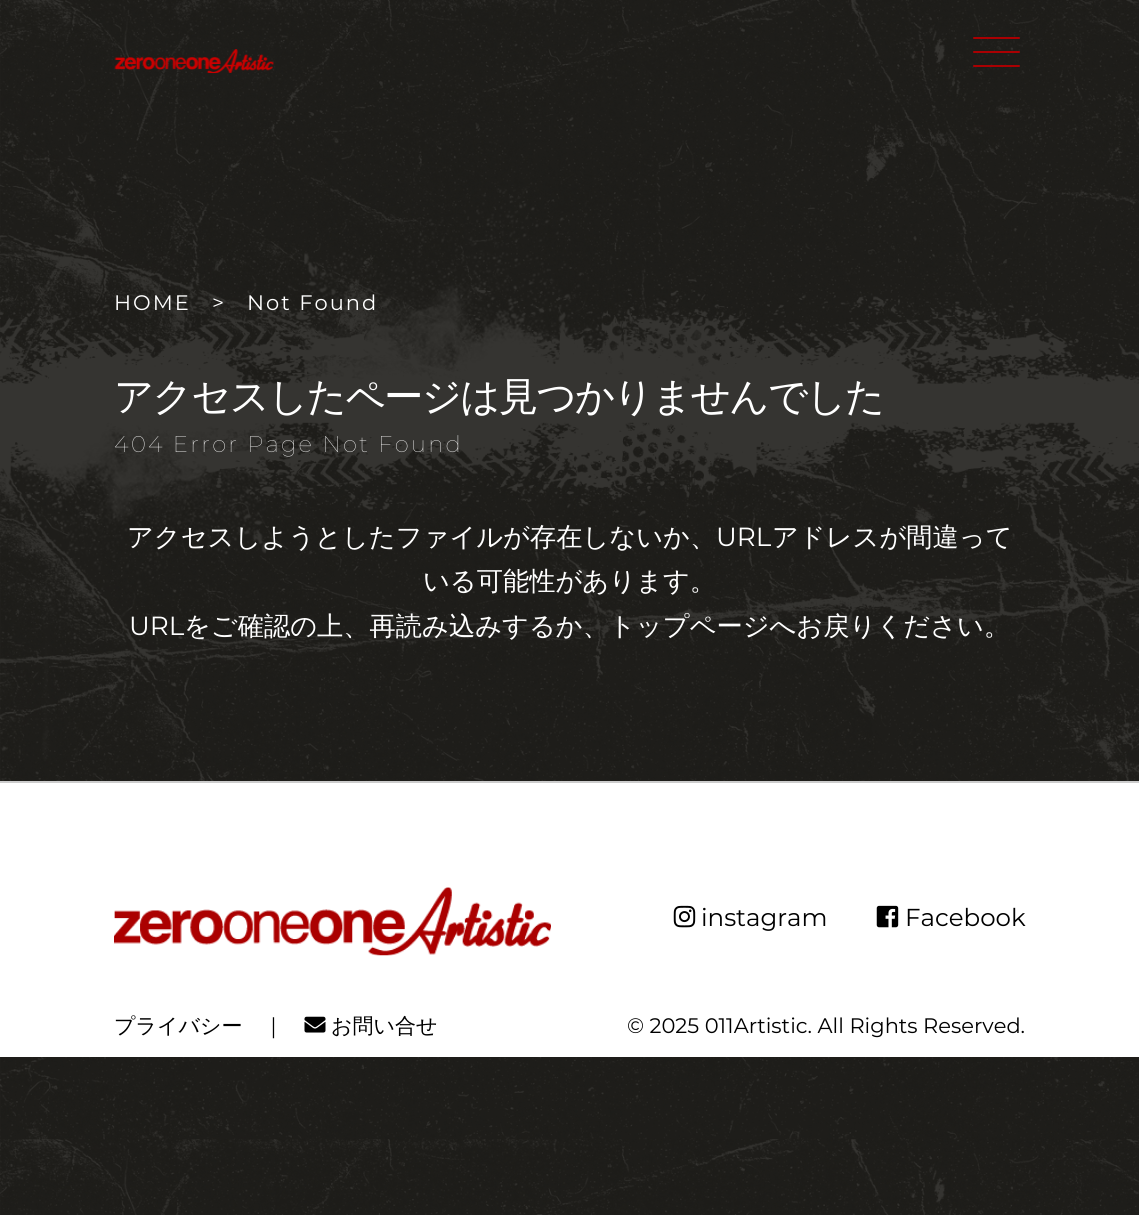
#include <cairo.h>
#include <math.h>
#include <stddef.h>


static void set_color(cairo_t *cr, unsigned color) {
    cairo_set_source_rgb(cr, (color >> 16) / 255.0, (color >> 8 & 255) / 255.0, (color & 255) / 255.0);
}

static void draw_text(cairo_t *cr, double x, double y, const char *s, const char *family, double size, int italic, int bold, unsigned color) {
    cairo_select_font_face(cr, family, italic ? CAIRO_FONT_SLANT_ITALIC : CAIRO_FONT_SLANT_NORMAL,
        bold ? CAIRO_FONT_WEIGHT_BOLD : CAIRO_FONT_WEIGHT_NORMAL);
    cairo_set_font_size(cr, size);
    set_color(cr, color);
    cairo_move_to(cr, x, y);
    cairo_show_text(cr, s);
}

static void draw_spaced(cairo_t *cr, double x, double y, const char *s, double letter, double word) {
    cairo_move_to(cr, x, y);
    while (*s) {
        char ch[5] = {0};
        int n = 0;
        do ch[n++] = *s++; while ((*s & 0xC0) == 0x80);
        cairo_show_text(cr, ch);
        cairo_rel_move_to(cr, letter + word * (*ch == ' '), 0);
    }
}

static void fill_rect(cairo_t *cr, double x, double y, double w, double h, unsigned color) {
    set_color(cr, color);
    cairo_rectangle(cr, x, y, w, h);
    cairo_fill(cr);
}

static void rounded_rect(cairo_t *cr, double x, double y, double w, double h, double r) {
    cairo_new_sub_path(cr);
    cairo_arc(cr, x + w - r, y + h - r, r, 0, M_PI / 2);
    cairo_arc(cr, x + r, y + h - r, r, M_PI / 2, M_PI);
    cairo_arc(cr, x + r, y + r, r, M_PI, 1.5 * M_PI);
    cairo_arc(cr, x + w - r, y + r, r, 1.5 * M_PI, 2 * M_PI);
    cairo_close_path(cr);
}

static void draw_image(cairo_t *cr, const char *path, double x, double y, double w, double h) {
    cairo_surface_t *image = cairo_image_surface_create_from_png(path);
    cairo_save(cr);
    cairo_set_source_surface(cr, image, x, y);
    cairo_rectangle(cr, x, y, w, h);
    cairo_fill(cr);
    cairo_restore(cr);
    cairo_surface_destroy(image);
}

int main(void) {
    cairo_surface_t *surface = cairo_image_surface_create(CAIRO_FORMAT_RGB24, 1139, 1215);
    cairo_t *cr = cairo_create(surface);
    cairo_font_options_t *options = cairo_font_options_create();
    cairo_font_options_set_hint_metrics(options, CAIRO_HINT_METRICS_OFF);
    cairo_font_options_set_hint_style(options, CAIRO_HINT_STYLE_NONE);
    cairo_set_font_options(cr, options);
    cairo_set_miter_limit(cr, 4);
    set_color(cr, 0x1E1D1A);
    cairo_paint(cr);
    draw_image(cr, "assets/img1.png", 0, 0, 1139, 1215);
    draw_image(cr, "assets/img2.png", 114, 49, 160, 25);
    set_color(cr, 0xAA0002);
    rounded_rect(cr, 973, 37, 47, 2, 1);
    cairo_fill(cr);
    rounded_rect(cr, 973, 51, 47, 2, 1);
    cairo_fill(cr);
    rounded_rect(cr, 973, 65, 47, 2, 1);
    cairo_fill(cr);
    cairo_select_font_face(cr, "Montserrat", CAIRO_FONT_SLANT_NORMAL, CAIRO_FONT_WEIGHT_NORMAL);
    cairo_set_font_size(cr, 21);
    set_color(cr, 0xFFFFFF);
    draw_spaced(cr, 114, 310, "HOME", 2, 0);
    draw_spaced(cr, 212, 310, ">", 2, 0);
    draw_spaced(cr, 247, 310, "Not Found", 2, 0);
    cairo_select_font_face(cr, "WenQuanYi Zen Hei Medium", CAIRO_FONT_SLANT_NORMAL, CAIRO_FONT_WEIGHT_NORMAL);
    cairo_set_font_size(cr, 39.4);
    draw_spaced(cr, 114, 410, "アクセスしたページは見つかりませんでした", -1.75, 0);
    cairo_select_font_face(cr, "Montserrat Thin", CAIRO_FONT_SLANT_NORMAL, CAIRO_FONT_WEIGHT_NORMAL);
    cairo_set_font_size(cr, 22.75);
    draw_spaced(cr, 114, 452, "404 Error Page Not Found", 2.25, 0);
    draw_text(cr, 127, 546, "アクセスしようとしたファイルが存在しないか、", "WenQuanYi Zen Hei Medium", 26.25, 0, 0, 0xFFFFFF);
    draw_text(cr, 716, 546, "URL", "Montserrat", 26.25, 0, 0, 0xFFFFFF);
    draw_text(cr, 772, 546, "アドレスが間違って", "WenQuanYi Zen Hei Medium", 26.25, 0, 0, 0xFFFFFF);
    draw_text(cr, 423, 590, "いる可能性があります。", "WenQuanYi Zen Hei Medium", 26.25, 0, 0, 0xFFFFFF);
    draw_text(cr, 129, 635, "URL", "Montserrat", 26.25, 0, 0, 0xFFFFFF);
    draw_text(cr, 184, 635, "をご確認の上、再読み込みするか、トップページへお戻りください。", "WenQuanYi Zen Hei Medium", 26.25, 0, 0, 0xFFFFFF);
    fill_rect(cr, 0, 783, 1139, 274, 0xFFFFFF);
    fill_rect(cr, 0, 781, 1139, 2, 0xCCCCCC);
    draw_image(cr, "assets/img3.png", 114, 887, 437, 69);
    draw_image(cr, "assets/img4.png", 673, 905, 23, 23);
    draw_text(cr, 701, 926, "instagram", "Montserrat", 24.5, 0, 0, 0x000000);
    draw_image(cr, "assets/img5.png", 876, 905, 23, 23);
    draw_text(cr, 905, 926, "Facebook", "Montserrat", 24.5, 0, 0, 0x000000);
    draw_text(cr, 114, 1033, "プライバシー", "WenQuanYi Zen Hei Medium", 21, 0, 0, 0x000000);
    draw_text(cr, 263, 1033, "｜", "WenQuanYi Zen Hei Medium", 21, 0, 0, 0x000000);
    draw_image(cr, "assets/img6.png", 304, 1016, 22, 17);
    draw_text(cr, 331, 1033, "お問い合せ", "WenQuanYi Zen Hei Medium", 21, 0, 0, 0x000000);
    draw_text(cr, 627, 1033, "© 2025 011Artistic. All Rights Reserved.", "Montserrat", 21, 0, 0, 0x000000);
    cairo_surface_write_to_png(surface, "output.png");
    cairo_font_options_destroy(options);
    cairo_destroy(cr);
    cairo_surface_destroy(surface);
    return 0;
}
